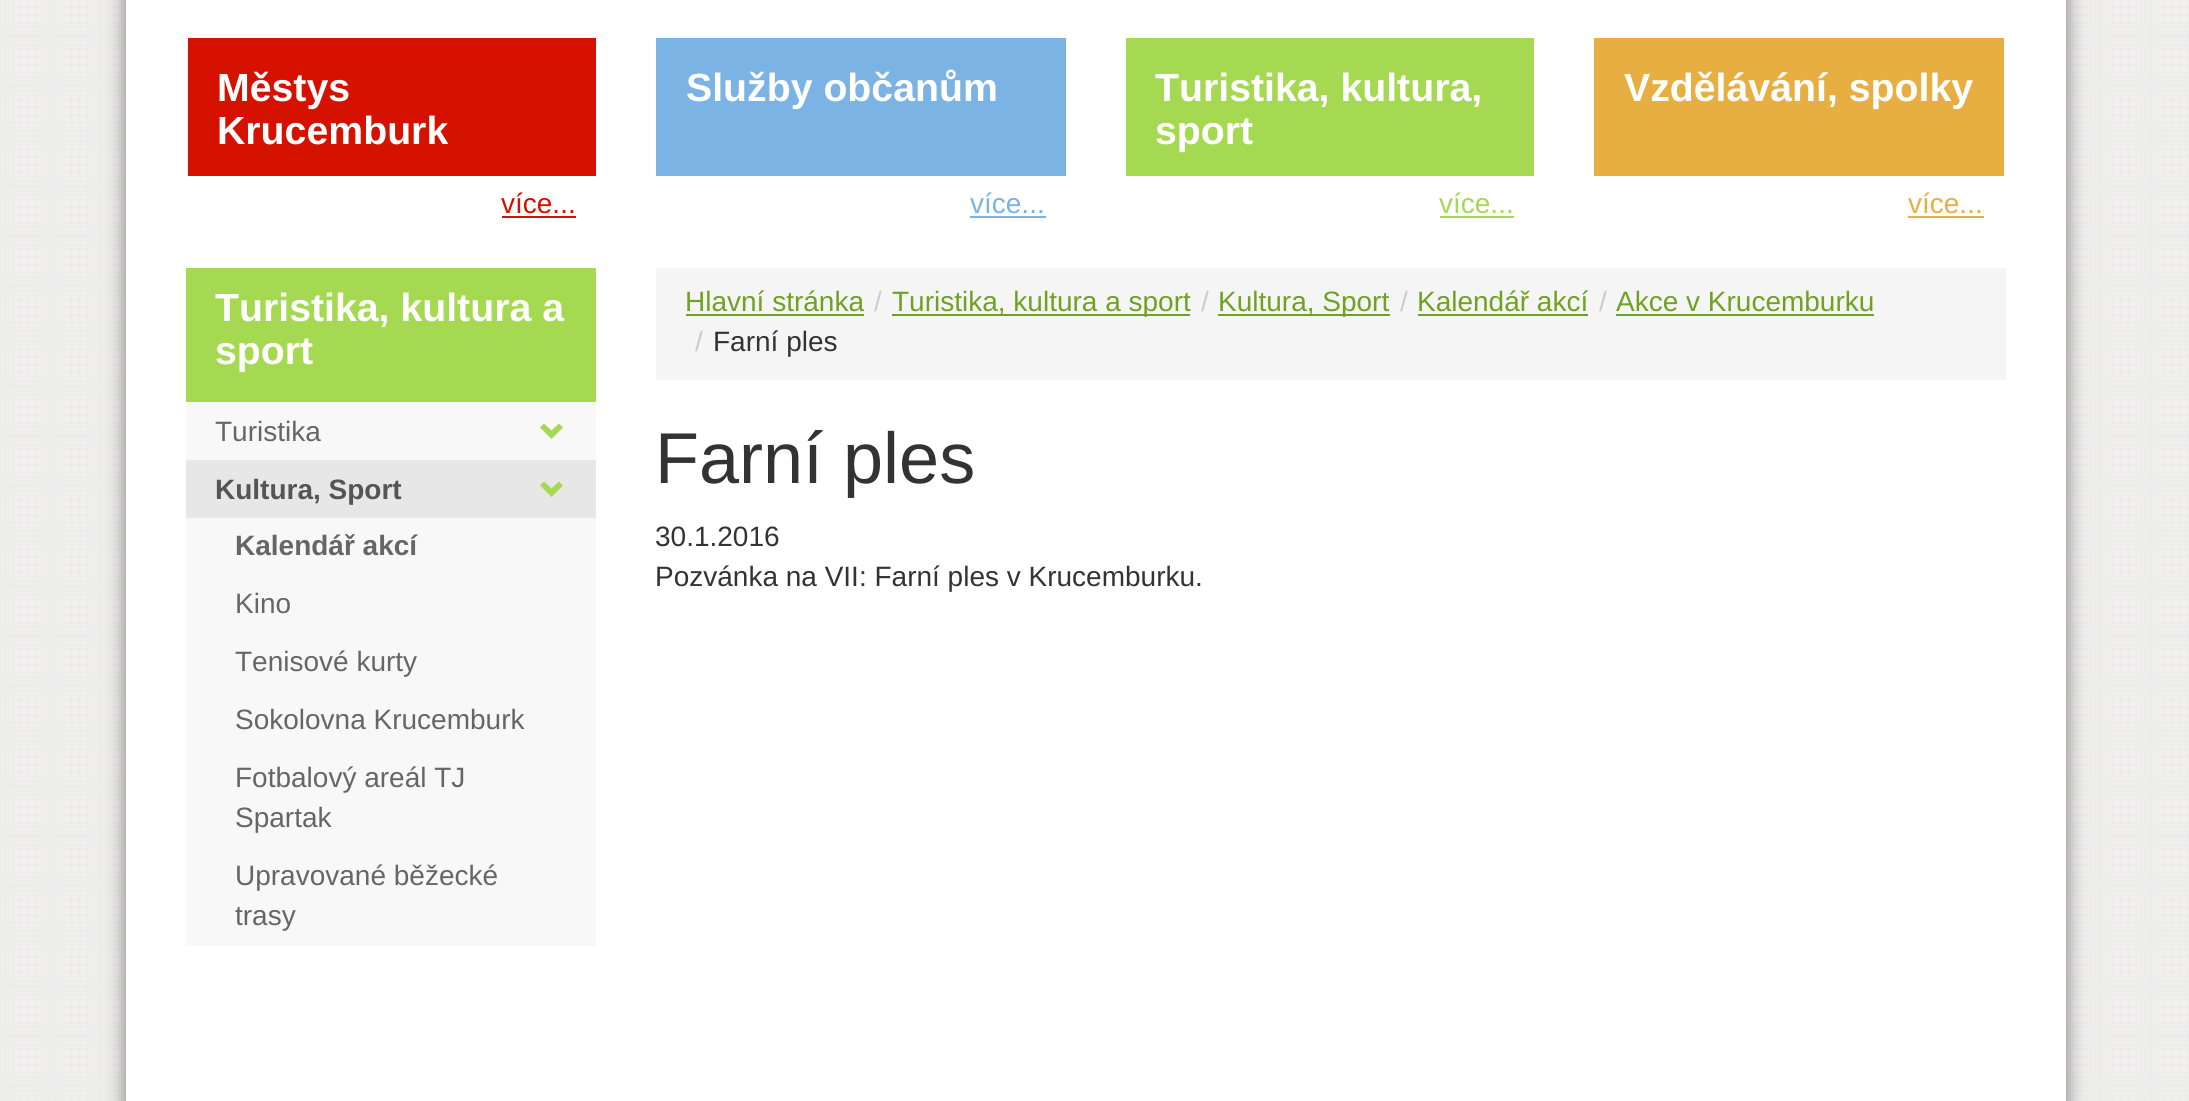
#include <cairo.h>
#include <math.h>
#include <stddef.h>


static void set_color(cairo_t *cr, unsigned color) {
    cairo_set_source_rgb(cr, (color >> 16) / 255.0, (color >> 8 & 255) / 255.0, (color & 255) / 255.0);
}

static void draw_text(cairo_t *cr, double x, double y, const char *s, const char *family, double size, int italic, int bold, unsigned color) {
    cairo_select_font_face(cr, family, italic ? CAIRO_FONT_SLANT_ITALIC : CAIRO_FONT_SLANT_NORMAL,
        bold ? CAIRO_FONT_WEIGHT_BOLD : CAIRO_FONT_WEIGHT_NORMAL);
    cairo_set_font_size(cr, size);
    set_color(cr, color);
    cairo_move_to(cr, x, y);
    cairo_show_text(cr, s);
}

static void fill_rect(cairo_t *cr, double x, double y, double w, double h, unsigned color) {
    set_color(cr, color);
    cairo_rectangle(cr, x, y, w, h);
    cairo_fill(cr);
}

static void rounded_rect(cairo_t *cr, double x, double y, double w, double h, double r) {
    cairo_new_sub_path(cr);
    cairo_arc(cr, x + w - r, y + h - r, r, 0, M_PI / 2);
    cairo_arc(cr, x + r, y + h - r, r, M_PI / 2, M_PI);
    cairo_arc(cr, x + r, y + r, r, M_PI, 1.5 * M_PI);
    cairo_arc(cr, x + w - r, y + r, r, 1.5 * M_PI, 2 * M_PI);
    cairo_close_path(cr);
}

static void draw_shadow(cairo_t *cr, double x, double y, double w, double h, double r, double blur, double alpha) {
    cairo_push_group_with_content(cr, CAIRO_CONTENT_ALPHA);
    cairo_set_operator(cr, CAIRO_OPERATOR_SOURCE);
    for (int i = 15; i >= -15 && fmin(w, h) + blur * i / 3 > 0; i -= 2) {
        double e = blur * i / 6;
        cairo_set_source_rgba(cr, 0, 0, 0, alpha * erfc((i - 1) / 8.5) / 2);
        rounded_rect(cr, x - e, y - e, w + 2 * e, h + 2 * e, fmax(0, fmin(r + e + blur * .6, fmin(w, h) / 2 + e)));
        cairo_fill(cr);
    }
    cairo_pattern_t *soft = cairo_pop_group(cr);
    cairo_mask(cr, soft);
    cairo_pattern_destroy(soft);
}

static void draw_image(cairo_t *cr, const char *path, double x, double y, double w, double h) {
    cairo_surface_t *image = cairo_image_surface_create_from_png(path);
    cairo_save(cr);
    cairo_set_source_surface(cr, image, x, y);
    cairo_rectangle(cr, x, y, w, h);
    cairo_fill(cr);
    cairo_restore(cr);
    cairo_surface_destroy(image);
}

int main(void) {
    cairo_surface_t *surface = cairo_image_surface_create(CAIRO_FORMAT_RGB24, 2189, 1101);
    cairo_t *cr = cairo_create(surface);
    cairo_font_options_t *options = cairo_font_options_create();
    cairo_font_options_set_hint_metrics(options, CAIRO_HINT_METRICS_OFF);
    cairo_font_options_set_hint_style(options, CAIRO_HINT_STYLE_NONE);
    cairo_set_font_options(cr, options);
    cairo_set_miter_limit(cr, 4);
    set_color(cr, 0xFFFFFF);
    cairo_paint(cr);
    draw_image(cr, "assets/img1.png", 0, 0, 2189, 1101);
    set_color(cr, 0x000000);
    draw_shadow(cr, 126, -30, 1940, 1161, 0, 10, 0.5);
    fill_rect(cr, 126, 0, 1940, 1101, 0xFFFFFF);
    fill_rect(cr, 188, 38, 408, 138, 0xD51100);
    draw_text(cr, 217, 101, "Městys", "Liberation Sans", 39.25, 0, 1, 0xFFFFFF);
    draw_text(cr, 217, 144, "Krucemburk", "Liberation Sans", 39.25, 0, 1, 0xFFFFFF);
    draw_text(cr, 501, 213, "více...", "Liberation Sans", 28, 0, 0, 0xD51100);
    fill_rect(cr, 502, 216, 74, 2, 0xD51100);
    fill_rect(cr, 656, 38, 410, 138, 0x7AB3E4);
    draw_text(cr, 686, 101, "Služby občanům", "Liberation Sans", 39.25, 0, 1, 0xFFFFFF);
    draw_text(cr, 970, 213, "více...", "Liberation Sans", 28, 0, 0, 0x7AB3E4);
    fill_rect(cr, 970, 216, 76, 2, 0x7AB3E4);
    fill_rect(cr, 1126, 38, 408, 138, 0xA5D951);
    draw_text(cr, 1155, 101, "Turistika, kultura,", "Liberation Sans", 39.25, 0, 1, 0xFFFFFF);
    draw_text(cr, 1155, 144, "sport", "Liberation Sans", 39.25, 0, 1, 0xFFFFFF);
    draw_text(cr, 1439, 213, "více...", "Liberation Sans", 28, 0, 0, 0xA5D951);
    fill_rect(cr, 1440, 216, 74, 2, 0xA5D951);
    fill_rect(cr, 1594, 38, 410, 138, 0xE7AF41);
    draw_text(cr, 1624, 101, "Vzdělávání, spolky", "Liberation Sans", 39.25, 0, 1, 0xFFFFFF);
    draw_text(cr, 1908, 213, "více...", "Liberation Sans", 28, 0, 0, 0xE7AF41);
    fill_rect(cr, 1908, 216, 76, 2, 0xE7AF41);
    fill_rect(cr, 186, 268, 410, 134, 0xA5D951);
    draw_text(cr, 215, 321, "Turistika, kultura a", "Liberation Sans", 39.25, 0, 1, 0xFFFFFF);
    draw_text(cr, 215, 364, "sport", "Liberation Sans", 39.25, 0, 1, 0xFFFFFF);
    fill_rect(cr, 186, 402, 410, 544, 0xF8F8F8);
    draw_text(cr, 215, 441, "Turistika", "Liberation Sans", 28, 0, 0, 0x666666);
    set_color(cr, 0xA5D951);
    cairo_new_path(cr);
    cairo_move_to(cr, 563, 427.5);
    cairo_line_to(cr, 551.5, 439);
    cairo_line_to(cr, 540, 427.5);
    cairo_line_to(cr, 544, 423.5);
    cairo_line_to(cr, 551.5, 430.5);
    cairo_line_to(cr, 559, 423.5);
    cairo_close_path(cr);
    cairo_fill(cr);
    fill_rect(cr, 186, 460, 410, 58, 0xE7E7E7);
    draw_text(cr, 215, 499, "Kultura, Sport", "Liberation Sans", 28, 0, 1, 0x555555);
    set_color(cr, 0xA5D951);
    cairo_new_path(cr);
    cairo_move_to(cr, 563, 485.5);
    cairo_line_to(cr, 551.5, 497);
    cairo_line_to(cr, 540, 485.5);
    cairo_line_to(cr, 544, 481.5);
    cairo_line_to(cr, 551.5, 488.5);
    cairo_line_to(cr, 559, 481.5);
    cairo_close_path(cr);
    cairo_fill(cr);
    draw_text(cr, 235, 555, "Kalendář akcí", "Liberation Sans", 28, 0, 1, 0x666666);
    draw_text(cr, 235, 613, "Kino", "Liberation Sans", 28, 0, 0, 0x666666);
    draw_text(cr, 235, 671, "Tenisové kurty", "Liberation Sans", 28, 0, 0, 0x666666);
    draw_text(cr, 235, 729, "Sokolovna Krucemburk", "Liberation Sans", 28, 0, 0, 0x666666);
    draw_text(cr, 235, 787, "Fotbalový areál TJ", "Liberation Sans", 28, 0, 0, 0x666666);
    draw_text(cr, 235, 827, "Spartak", "Liberation Sans", 28, 0, 0, 0x666666);
    draw_text(cr, 235, 885, "Upravované běžecké", "Liberation Sans", 28, 0, 0, 0x666666);
    draw_text(cr, 235, 925, "trasy", "Liberation Sans", 28, 0, 0, 0x666666);
    fill_rect(cr, 656, 268, 1350, 112, 0xF5F5F5);
    draw_text(cr, 685, 311, "Hlavní stránka", "Liberation Sans", 28, 0, 0, 0x71A123);
    fill_rect(cr, 686, 314, 178, 2, 0x71A123);
    draw_text(cr, 874, 311, "/", "Liberation Sans", 28, 0, 0, 0xCCCCCC);
    fill_rect(cr, 892, 314, 298, 2, 0x71A123);
    draw_text(cr, 892, 311, "Turistika, kultura a sport", "Liberation Sans", 28, 0, 0, 0x71A123);
    draw_text(cr, 1201, 311, "/", "Liberation Sans", 28, 0, 0, 0xCCCCCC);
    fill_rect(cr, 1218, 314, 172, 2, 0x71A123);
    draw_text(cr, 1218, 311, "Kultura, Sport", "Liberation Sans", 28, 0, 0, 0x71A123);
    draw_text(cr, 1400, 311, "/", "Liberation Sans", 28, 0, 0, 0xCCCCCC);
    draw_text(cr, 1417, 311, "Kalendář akcí", "Liberation Sans", 28, 0, 0, 0x71A123);
    fill_rect(cr, 1418, 314, 170, 2, 0x71A123);
    draw_text(cr, 1599, 311, "/", "Liberation Sans", 28, 0, 0, 0xCCCCCC);
    draw_text(cr, 1616, 311, "Akce v Krucemburku", "Liberation Sans", 28, 0, 0, 0x71A123);
    fill_rect(cr, 1616, 314, 258, 2, 0x71A123);
    draw_text(cr, 695, 351, "/", "Liberation Sans", 28, 0, 0, 0xCCCCCC);
    draw_text(cr, 713, 351, "Farní ples", "Liberation Sans", 28, 0, 0, 0x333333);
    draw_text(cr, 655, 483, "Farní ples", "Liberation Sans", 72, 0, 0, 0x333333);
    draw_text(cr, 655, 546, "30.1.2016", "Liberation Sans", 28, 0, 0, 0x333333);
    draw_text(cr, 655, 586, "Pozvánka na VII: Farní ples v Krucemburku.", "Liberation Sans", 28, 0, 0, 0x333333);
    cairo_surface_write_to_png(surface, "output.png");
    cairo_font_options_destroy(options);
    cairo_destroy(cr);
    cairo_surface_destroy(surface);
    return 0;
}
